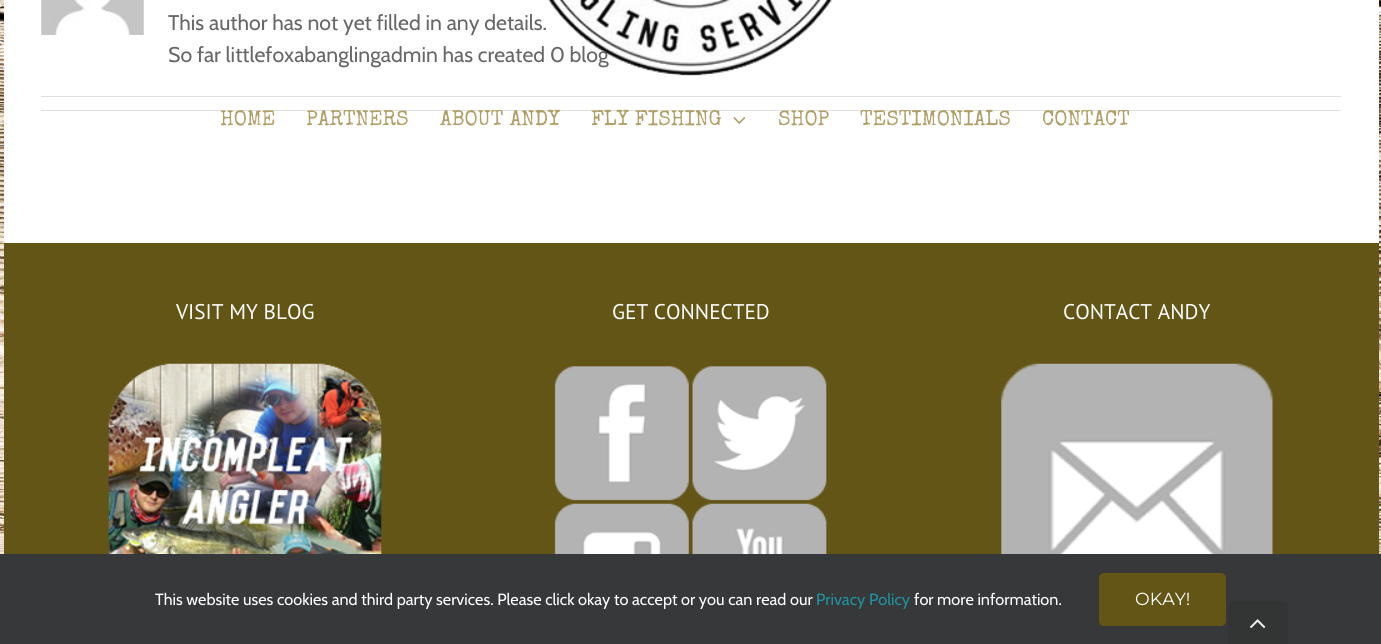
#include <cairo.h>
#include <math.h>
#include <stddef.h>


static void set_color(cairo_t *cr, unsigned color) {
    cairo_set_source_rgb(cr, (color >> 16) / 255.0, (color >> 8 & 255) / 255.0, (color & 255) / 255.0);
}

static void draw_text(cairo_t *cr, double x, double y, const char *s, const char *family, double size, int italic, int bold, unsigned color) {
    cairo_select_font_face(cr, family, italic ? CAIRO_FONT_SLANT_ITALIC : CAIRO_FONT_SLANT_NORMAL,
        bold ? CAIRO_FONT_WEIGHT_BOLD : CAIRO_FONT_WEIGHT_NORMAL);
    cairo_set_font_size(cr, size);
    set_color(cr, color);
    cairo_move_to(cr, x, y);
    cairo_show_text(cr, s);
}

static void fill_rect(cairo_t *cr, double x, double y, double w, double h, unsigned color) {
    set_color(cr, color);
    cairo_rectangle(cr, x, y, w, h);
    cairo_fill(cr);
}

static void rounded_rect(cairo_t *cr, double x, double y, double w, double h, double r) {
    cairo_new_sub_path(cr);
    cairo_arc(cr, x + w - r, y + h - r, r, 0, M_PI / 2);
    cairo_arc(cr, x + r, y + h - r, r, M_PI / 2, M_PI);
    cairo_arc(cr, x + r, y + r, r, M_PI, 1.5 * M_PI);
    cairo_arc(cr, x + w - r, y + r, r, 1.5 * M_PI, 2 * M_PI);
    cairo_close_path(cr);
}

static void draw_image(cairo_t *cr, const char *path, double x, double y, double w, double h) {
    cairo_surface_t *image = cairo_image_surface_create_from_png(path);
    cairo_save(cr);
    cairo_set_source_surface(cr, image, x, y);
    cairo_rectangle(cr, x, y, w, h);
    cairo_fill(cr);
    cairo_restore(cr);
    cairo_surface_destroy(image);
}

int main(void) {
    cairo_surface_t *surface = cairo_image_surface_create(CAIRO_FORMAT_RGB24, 1381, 644);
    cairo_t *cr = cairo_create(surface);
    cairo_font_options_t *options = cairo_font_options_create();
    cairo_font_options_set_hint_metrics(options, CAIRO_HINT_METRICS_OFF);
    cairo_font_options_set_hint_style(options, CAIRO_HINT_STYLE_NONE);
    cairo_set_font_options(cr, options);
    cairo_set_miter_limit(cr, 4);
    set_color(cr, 0xFFFFFF);
    cairo_paint(cr);
    draw_image(cr, "assets/img1.png", 0, 0, 1381, 554);
    fill_rect(cr, 4, 0, 1375, 243, 0xFFFFFF);
    draw_image(cr, "assets/img2.png", 41, 0, 103, 35);
    draw_text(cr, 168, 30, "This author has not yet filled in any details.", "Cabin", 21.25, 0, 0, 0x666666);
    draw_text(cr, 168, 62, "So far littlefoxabanglingadmin has created 0 blog", "Cabin", 21.25, 0, 0, 0x666666);
    fill_rect(cr, 41, 96, 1300, 1, 0xE0DEDE);
    fill_rect(cr, 41, 110, 1300, 1, 0xE0DEDE);
    draw_image(cr, "assets/img3.png", 548, 0, 284, 76);
    draw_text(cr, 220, 125, "HOME", "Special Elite", 21.25, 0, 0, 0xB19E66);
    draw_text(cr, 306, 125, "PARTNERS", "Special Elite", 21.25, 0, 0, 0xB19E66);
    draw_text(cr, 440, 125, "ABOUT ANDY", "Special Elite", 21.25, 0, 0, 0xB19E66);
    draw_text(cr, 591, 125, "FLY FISHING", "Special Elite", 21.25, 0, 0, 0xB19E66);
    draw_image(cr, "assets/img4.png", 733, 117, 13, 7);
    draw_text(cr, 778, 125, "SHOP", "Special Elite", 21.25, 0, 0, 0xB19E66);
    draw_text(cr, 860, 125, "TESTIMONIALS", "Special Elite", 21.25, 0, 0, 0xB19E66);
    draw_text(cr, 1042, 125, "CONTACT", "Special Elite", 21.25, 0, 0, 0xB19E66);
    fill_rect(cr, 4, 243, 1375, 311, 0x635516);
    draw_text(cr, 176, 319, "VISIT MY BLOG", "PT Sans", 21.25, 0, 0, 0xFFFFFF);
    draw_image(cr, "assets/img5.png", 108, 363, 274, 191);
    draw_text(cr, 612, 319, "GET CONNECTED", "PT Sans", 21.25, 0, 0, 0xFFFFFF);
    draw_image(cr, "assets/img6.png", 554, 366, 135, 135);
    draw_image(cr, "assets/img7.png", 692, 366, 135, 135);
    draw_image(cr, "assets/img8.png", 554, 503, 135, 51);
    draw_image(cr, "assets/img9.png", 692, 503, 135, 51);
    draw_text(cr, 1063, 319, "CONTACT ANDY", "PT Sans", 21.25, 0, 0, 0xFFFFFF);
    draw_image(cr, "assets/img10.png", 1001, 363, 272, 191);
    fill_rect(cr, 0, 554, 1381, 90, 0x363839);
    draw_text(cr, 155, 605, "This website uses cookies and third party services. Please click okay to accept or you can read our", "Cabin", 16.25, 0, 0, 0xFFFFFF);
    draw_text(cr, 816, 605, "Privacy Policy", "Cabin", 16.25, 0, 0, 0x1E939F);
    draw_text(cr, 914, 605, "for more information.", "Cabin", 16.25, 0, 0, 0xFFFFFF);
    set_color(cr, 0x635516);
    rounded_rect(cr, 1099, 573, 127, 53, 5);
    cairo_fill(cr);
    draw_text(cr, 1135, 605, "OKAY!", "Montserrat Thin", 17.5, 0, 0, 0xFFFFFF);
    set_color(cr, 0x333434);
    cairo_new_path(cr);
    cairo_move_to(cr, 1233, 601);
    cairo_line_to(cr, 1283, 601);
    cairo_curve_to(cr, 1286, 601, 1288, 603, 1288, 606);
    cairo_line_to(cr, 1288, 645);
    cairo_line_to(cr, 1228, 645);
    cairo_line_to(cr, 1228, 606);
    cairo_curve_to(cr, 1228, 603, 1230, 601, 1233, 601);
    cairo_close_path(cr);
    cairo_fill(cr);
    draw_image(cr, "assets/img11.png", 1250, 619, 16, 10);
    cairo_surface_write_to_png(surface, "output.png");
    cairo_font_options_destroy(options);
    cairo_destroy(cr);
    cairo_surface_destroy(surface);
    return 0;
}
